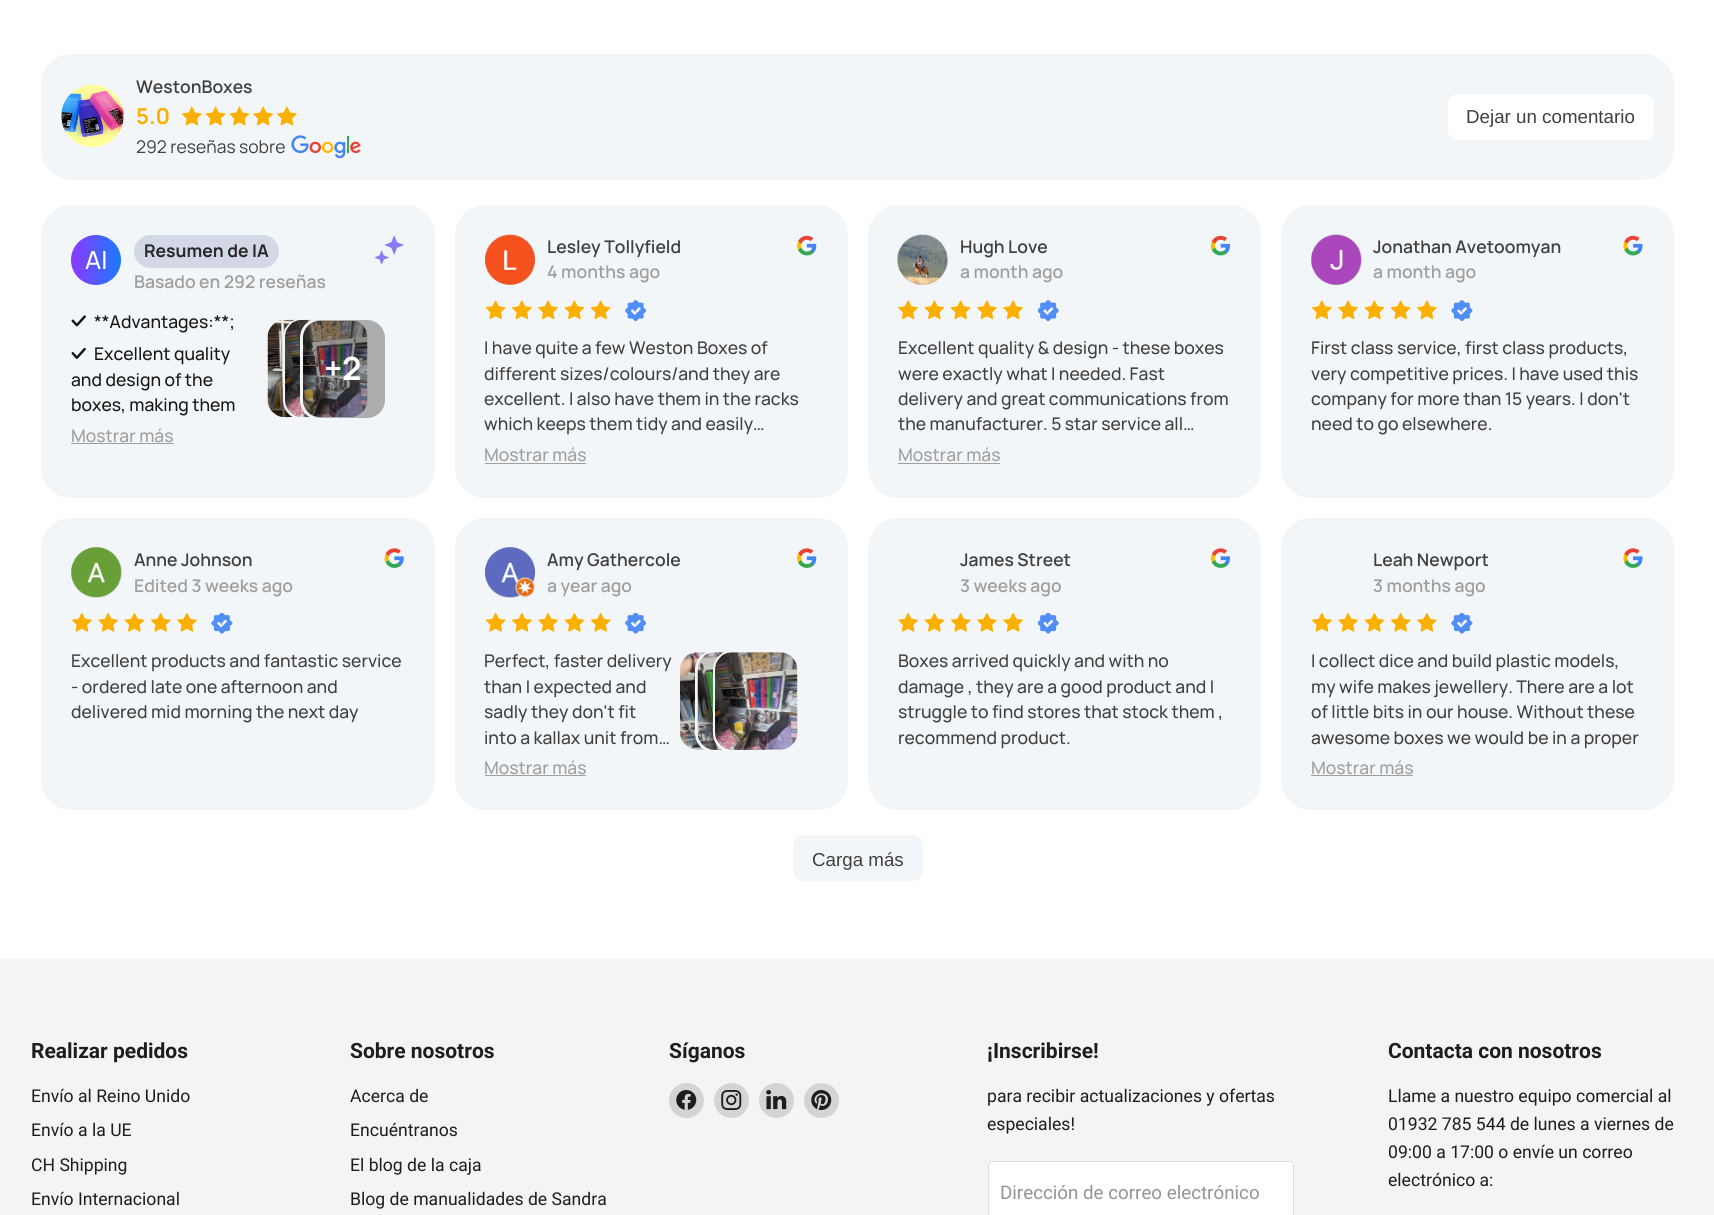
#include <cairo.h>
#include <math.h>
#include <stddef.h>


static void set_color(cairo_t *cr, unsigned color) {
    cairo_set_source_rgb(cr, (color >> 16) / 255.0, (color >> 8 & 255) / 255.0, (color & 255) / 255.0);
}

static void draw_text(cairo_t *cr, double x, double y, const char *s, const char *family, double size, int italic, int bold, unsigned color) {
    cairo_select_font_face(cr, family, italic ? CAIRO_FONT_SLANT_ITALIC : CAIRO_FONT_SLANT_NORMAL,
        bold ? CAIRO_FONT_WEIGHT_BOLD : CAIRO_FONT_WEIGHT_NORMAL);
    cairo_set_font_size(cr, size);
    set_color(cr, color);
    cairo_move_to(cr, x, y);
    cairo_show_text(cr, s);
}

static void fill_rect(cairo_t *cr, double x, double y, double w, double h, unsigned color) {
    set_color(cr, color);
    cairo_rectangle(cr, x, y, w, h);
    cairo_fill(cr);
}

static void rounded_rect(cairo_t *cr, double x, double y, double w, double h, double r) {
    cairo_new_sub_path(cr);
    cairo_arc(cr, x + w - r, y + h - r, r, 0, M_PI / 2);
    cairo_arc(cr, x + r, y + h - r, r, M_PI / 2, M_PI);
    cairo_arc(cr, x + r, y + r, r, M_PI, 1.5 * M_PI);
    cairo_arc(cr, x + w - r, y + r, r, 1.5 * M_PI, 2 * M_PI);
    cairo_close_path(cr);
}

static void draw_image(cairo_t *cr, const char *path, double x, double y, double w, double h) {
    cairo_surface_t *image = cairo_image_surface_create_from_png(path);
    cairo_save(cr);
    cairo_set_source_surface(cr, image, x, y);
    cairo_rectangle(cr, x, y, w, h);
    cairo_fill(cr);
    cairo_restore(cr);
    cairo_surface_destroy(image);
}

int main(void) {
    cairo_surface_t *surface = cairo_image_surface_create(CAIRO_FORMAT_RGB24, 1714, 1215);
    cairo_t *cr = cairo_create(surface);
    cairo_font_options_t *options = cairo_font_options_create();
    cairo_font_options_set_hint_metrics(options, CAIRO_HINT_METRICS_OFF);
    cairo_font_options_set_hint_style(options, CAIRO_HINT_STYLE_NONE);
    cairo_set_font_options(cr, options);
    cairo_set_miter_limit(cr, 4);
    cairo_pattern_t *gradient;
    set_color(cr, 0xFFFFFF);
    cairo_paint(cr);
    set_color(cr, 0xF3F6F9);
    rounded_rect(cr, 41, 54, 1633, 126, 30);
    cairo_fill(cr);
    draw_image(cr, "assets/img1.png", 61, 84, 63, 64);
    draw_text(cr, 136, 93, "WestonBoxes", "Manrope SemiBold", 17.5, 0, 0, 0x404040);
    draw_text(cr, 136, 124, "5.0", "Manrope", 22, 0, 1, 0xFBB000);
    draw_image(cr, "assets/img2.png", 182, 106, 20, 20);
    draw_image(cr, "assets/img3.png", 205, 106, 21, 20);
    draw_image(cr, "assets/img4.png", 229, 106, 21, 20);
    draw_image(cr, "assets/img5.png", 253, 106, 20, 20);
    draw_image(cr, "assets/img2.png", 277, 106, 20, 20);
    draw_text(cr, 136, 153, "292 reseñas sobre", "Manrope", 17.5, 0, 0, 0x404040);
    draw_image(cr, "assets/img6.png", 291, 135, 70, 24);
    set_color(cr, 0xFFFFFF);
    rounded_rect(cr, 1448, 94, 206, 46, 10);
    cairo_fill(cr);
    draw_text(cr, 1466, 123, "Dejar un comentario", "Liberation Sans", 18.75, 0, 0, 0x404040);
    set_color(cr, 0xF3F6F9);
    rounded_rect(cr, 41, 205, 394, 293, 30);
    cairo_fill(cr);
    gradient = cairo_pattern_create_linear(71, 260, 121, 260);
    cairo_pattern_add_color_stop_rgba(gradient, 0, 0.553, 0.22, 1, 1);
    cairo_pattern_add_color_stop_rgba(gradient, 1, 0.098, 0.482, 1, 1);
    cairo_set_source(cr, gradient);
    cairo_pattern_destroy(gradient);
    cairo_arc(cr, 96, 260, 25, 0, 2 * M_PI);
    cairo_fill(cr);
    draw_text(cr, 85, 269, "AI", "Manrope Medium", 25, 0, 0, 0xFFFFFF);
    set_color(cr, 0xD3D8E7);
    rounded_rect(cr, 134, 235, 145, 33, 16.5);
    cairo_fill(cr);
    draw_text(cr, 144, 257, "Resumen de IA", "Manrope", 17.5, 0, 1, 0x282828);
    draw_text(cr, 134, 288, "Basado en 292 reseñas", "Manrope SemiBold", 17.5, 0, 0, 0x9F9F9F);
    draw_image(cr, "assets/img7.png", 375, 235, 29, 30);
    draw_image(cr, "assets/img8.png", 71, 315, 15, 12);
    draw_text(cr, 94, 328, "**Advantages:**;", "Manrope Medium", 17.5, 0, 0, 0x161616);
    draw_image(cr, "assets/img9.png", 71, 348, 15, 11);
    draw_text(cr, 94, 360, "Excellent quality", "Manrope Medium", 17.5, 0, 0, 0x161616);
    draw_text(cr, 71, 386, "and design of the", "Manrope Medium", 17.5, 0, 0, 0x161616);
    draw_text(cr, 71, 411, "boxes, making them", "Manrope Medium", 17.5, 0, 0, 0x161616);
    draw_image(cr, "assets/img11.png", 267, 319, 32, 99);
    rounded_rect(cr, 284.5, 319.5, 84, 99, 18.5);
    set_color(cr, 0xF3F6F9);
    cairo_set_line_width(cr, 3);
    cairo_stroke(cr);
    draw_image(cr, "assets/img10.png", 285, 319, 83, 99);
    rounded_rect(cr, 301.5, 319.5, 85, 99, 18.5);
    cairo_stroke(cr);
    cairo_set_source_rgba(cr, 0, 0, 0, 0.3);
    rounded_rect(cr, 303, 320, 82, 98, 18);
    cairo_fill(cr);
    draw_text(cr, 324, 380, "+2", "Manrope", 32, 0, 1, 0xFFFFFF);
    draw_text(cr, 71, 442, "Mostrar más", "Manrope Medium", 17.5, 0, 0, 0x9F9F9F);
    fill_rect(cr, 71, 443, 103, 1, 0x9F9F9F);
    set_color(cr, 0xF3F6F9);
    rounded_rect(cr, 455, 205, 393, 293, 30);
    cairo_fill(cr);
    draw_image(cr, "assets/img12.png", 485, 234, 50, 51);
    draw_text(cr, 547, 253, "Lesley Tollyfield", "Manrope SemiBold", 17.5, 0, 0, 0x404040);
    draw_text(cr, 547, 278, "4 months ago", "Manrope SemiBold", 17.5, 0, 0, 0x9F9F9F);
    draw_image(cr, "assets/img13.png", 797, 235, 20, 21);
    draw_image(cr, "assets/img14.png", 485, 300, 21, 20);
    draw_image(cr, "assets/img15.png", 512, 300, 20, 20);
    draw_image(cr, "assets/img16.png", 538, 300, 20, 20);
    draw_image(cr, "assets/img17.png", 564, 300, 21, 20);
    draw_image(cr, "assets/img14.png", 590, 300, 21, 20);
    draw_image(cr, "assets/img18.png", 625, 300, 21, 21);
    draw_text(cr, 484, 354, "I have quite a few Weston Boxes of", "Manrope Medium", 17.5, 0, 0, 0x404040);
    draw_text(cr, 484, 380, "different sizes/colours/and they are", "Manrope Medium", 17.5, 0, 0, 0x404040);
    draw_text(cr, 484, 405, "excellent. I also have them in the racks", "Manrope Medium", 17.5, 0, 0, 0x404040);
    draw_text(cr, 484, 430, "which keeps them tidy and easily…", "Manrope Medium", 17.5, 0, 0, 0x404040);
    draw_text(cr, 484, 461, "Mostrar más", "Manrope Medium", 17.5, 0, 0, 0x9F9F9F);
    fill_rect(cr, 485, 463, 101, 1, 0x9F9F9F);
    set_color(cr, 0xF3F6F9);
    rounded_rect(cr, 868, 205, 393, 293, 30);
    cairo_fill(cr);
    draw_image(cr, "assets/img19.png", 897, 234, 51, 51);
    draw_text(cr, 960, 253, "Hugh Love", "Manrope SemiBold", 17.5, 0, 0, 0x404040);
    draw_text(cr, 960, 278, "a month ago", "Manrope SemiBold", 17.5, 0, 0, 0x9F9F9F);
    draw_image(cr, "assets/img20.png", 1210, 235, 20, 21);
    draw_image(cr, "assets/img16.png", 898, 300, 20, 20);
    draw_image(cr, "assets/img17.png", 924, 300, 21, 20);
    draw_image(cr, "assets/img14.png", 950, 300, 21, 20);
    draw_image(cr, "assets/img15.png", 977, 300, 20, 20);
    draw_image(cr, "assets/img16.png", 1003, 300, 20, 20);
    draw_image(cr, "assets/img21.png", 1038, 300, 21, 21);
    draw_text(cr, 898, 354, "Excellent quality & design - these boxes", "Manrope Medium", 17.5, 0, 0, 0x404040);
    draw_text(cr, 898, 380, "were exactly what I needed. Fast", "Manrope Medium", 17.5, 0, 0, 0x404040);
    draw_text(cr, 898, 405, "delivery and great communications from", "Manrope Medium", 17.5, 0, 0, 0x404040);
    draw_text(cr, 898, 430, "the manufacturer. 5 star service all…", "Manrope Medium", 17.5, 0, 0, 0x404040);
    draw_text(cr, 898, 461, "Mostrar más", "Manrope Medium", 17.5, 0, 0, 0x9F9F9F);
    fill_rect(cr, 898, 463, 102, 1, 0x9F9F9F);
    set_color(cr, 0xF3F6F9);
    rounded_rect(cr, 1281, 205, 393, 293, 30);
    cairo_fill(cr);
    draw_image(cr, "assets/img22.png", 1311, 234, 51, 51);
    draw_text(cr, 1373, 253, "Jonathan Avetoomyan", "Manrope SemiBold", 17.5, 0, 0, 0x404040);
    draw_text(cr, 1373, 278, "a month ago", "Manrope SemiBold", 17.5, 0, 0, 0x9F9F9F);
    draw_image(cr, "assets/img23.png", 1623, 235, 20, 21);
    draw_image(cr, "assets/img15.png", 1312, 300, 20, 20);
    draw_image(cr, "assets/img16.png", 1338, 300, 20, 20);
    draw_image(cr, "assets/img17.png", 1364, 300, 21, 20);
    draw_image(cr, "assets/img14.png", 1390, 300, 21, 20);
    draw_image(cr, "assets/img15.png", 1417, 300, 20, 20);
    draw_image(cr, "assets/img24.png", 1451, 300, 22, 21);
    draw_text(cr, 1311, 354, "First class service, first class products,", "Manrope Medium", 17.5, 0, 0, 0x404040);
    draw_text(cr, 1311, 380, "very competitive prices. I have used this", "Manrope Medium", 17.5, 0, 0, 0x404040);
    draw_text(cr, 1311, 405, "company for more than 15 years. I don't", "Manrope Medium", 17.5, 0, 0, 0x404040);
    draw_text(cr, 1311, 430, "need to go elsewhere.", "Manrope Medium", 17.5, 0, 0, 0x404040);
    set_color(cr, 0xF3F6F9);
    rounded_rect(cr, 41, 518, 394, 292, 30);
    cairo_fill(cr);
    draw_image(cr, "assets/img25.png", 71, 547, 51, 51);
    draw_text(cr, 134, 566, "Anne Johnson", "Manrope SemiBold", 17.5, 0, 0, 0x404040);
    draw_text(cr, 134, 592, "Edited 3 weeks ago", "Manrope SemiBold", 17.5, 0, 0, 0x9F9F9F);
    draw_image(cr, "assets/img26.png", 384, 548, 20, 20);
    draw_image(cr, "assets/img27.png", 72, 613, 20, 19);
    draw_image(cr, "assets/img28.png", 98, 613, 20, 19);
    draw_image(cr, "assets/img29.png", 124, 613, 21, 19);
    draw_image(cr, "assets/img30.png", 150, 613, 21, 19);
    draw_image(cr, "assets/img27.png", 177, 613, 20, 19);
    draw_image(cr, "assets/img31.png", 211, 613, 22, 21);
    draw_text(cr, 71, 667, "Excellent products and fantastic service", "Manrope Medium", 17.5, 0, 0, 0x404040);
    draw_text(cr, 71, 693, "- ordered late one afternoon and", "Manrope Medium", 17.5, 0, 0, 0x404040);
    draw_text(cr, 71, 718, "delivered mid morning the next day", "Manrope Medium", 17.5, 0, 0, 0x404040);
    set_color(cr, 0xF3F6F9);
    rounded_rect(cr, 455, 518, 393, 292, 30);
    cairo_fill(cr);
    draw_image(cr, "assets/img32.png", 485, 547, 50, 51);
    draw_text(cr, 547, 566, "Amy Gathercole", "Manrope SemiBold", 17.5, 0, 0, 0x404040);
    cairo_save(cr);
    cairo_rectangle(cr, 548, 548, 132, 50);
    cairo_clip(cr);
    draw_text(cr, 547, 592, "a year ago", "Manrope SemiBold", 17.5, 0, 0, 0x9F9F9F);
    cairo_restore(cr);
    draw_image(cr, "assets/img33.png", 797, 548, 20, 20);
    draw_image(cr, "assets/img30.png", 485, 613, 21, 19);
    draw_image(cr, "assets/img27.png", 512, 613, 20, 19);
    draw_image(cr, "assets/img28.png", 538, 613, 20, 19);
    draw_image(cr, "assets/img29.png", 564, 613, 21, 19);
    draw_image(cr, "assets/img30.png", 590, 613, 21, 19);
    draw_image(cr, "assets/img34.png", 625, 613, 21, 21);
    draw_text(cr, 484, 667, "Perfect, faster delivery", "Manrope Medium", 17.5, 0, 0, 0x404040);
    draw_text(cr, 484, 693, "than I expected and", "Manrope Medium", 17.5, 0, 0, 0x404040);
    draw_text(cr, 484, 718, "sadly they don't fit", "Manrope Medium", 17.5, 0, 0, 0x404040);
    draw_text(cr, 484, 744, "into a kallax unit from…", "Manrope Medium", 17.5, 0, 0, 0x404040);
    draw_image(cr, "assets/img37.png", 680, 652, 70, 98);
    rounded_rect(cr, 696.5, 651.5, 85, 100, 18.5);
    set_color(cr, 0xF3F6F9);
    cairo_stroke(cr);
    draw_image(cr, "assets/img35.png", 697, 652, 71, 98);
    rounded_rect(cr, 714.5, 651.5, 84, 100, 18.5);
    cairo_stroke(cr);
    draw_image(cr, "assets/img36.png", 715, 652, 83, 98);
    draw_text(cr, 484, 774, "Mostrar más", "Manrope Medium", 17.5, 0, 0, 0x9F9F9F);
    fill_rect(cr, 485, 775, 101, 1, 0x9F9F9F);
    set_color(cr, 0xF3F6F9);
    rounded_rect(cr, 868, 518, 393, 292, 30);
    cairo_fill(cr);
    draw_text(cr, 960, 566, "James Street", "Manrope SemiBold", 17.5, 0, 0, 0x404040);
    draw_text(cr, 960, 592, "3 weeks ago", "Manrope SemiBold", 17.5, 0, 0, 0x9F9F9F);
    draw_image(cr, "assets/img38.png", 1210, 548, 20, 20);
    draw_image(cr, "assets/img28.png", 898, 613, 20, 19);
    draw_image(cr, "assets/img29.png", 924, 613, 21, 19);
    draw_image(cr, "assets/img30.png", 950, 613, 21, 19);
    draw_image(cr, "assets/img27.png", 977, 613, 20, 19);
    draw_image(cr, "assets/img28.png", 1003, 613, 20, 19);
    draw_image(cr, "assets/img39.png", 1038, 613, 21, 21);
    draw_text(cr, 898, 667, "Boxes arrived quickly and with no", "Manrope Medium", 17.5, 0, 0, 0x404040);
    draw_text(cr, 898, 693, "damage , they are a good product and I", "Manrope Medium", 17.5, 0, 0, 0x404040);
    draw_text(cr, 898, 718, "struggle to find stores that stock them ,", "Manrope Medium", 17.5, 0, 0, 0x404040);
    draw_text(cr, 898, 744, "recommend product.", "Manrope Medium", 17.5, 0, 0, 0x404040);
    set_color(cr, 0xF3F6F9);
    rounded_rect(cr, 1281, 518, 393, 292, 30);
    cairo_fill(cr);
    draw_text(cr, 1373, 566, "Leah Newport", "Manrope SemiBold", 17.5, 0, 0, 0x404040);
    draw_text(cr, 1373, 592, "3 months ago", "Manrope SemiBold", 17.5, 0, 0, 0x9F9F9F);
    draw_image(cr, "assets/img40.png", 1623, 548, 20, 20);
    draw_image(cr, "assets/img27.png", 1312, 613, 20, 19);
    draw_image(cr, "assets/img28.png", 1338, 613, 20, 19);
    draw_image(cr, "assets/img29.png", 1364, 613, 21, 19);
    draw_image(cr, "assets/img30.png", 1390, 613, 21, 19);
    draw_image(cr, "assets/img27.png", 1417, 613, 20, 19);
    draw_image(cr, "assets/img31.png", 1451, 613, 22, 21);
    draw_text(cr, 1311, 667, "I collect dice and build plastic models,", "Manrope Medium", 17.5, 0, 0, 0x404040);
    draw_text(cr, 1311, 693, "my wife makes jewellery. There are a lot", "Manrope Medium", 17.5, 0, 0, 0x404040);
    draw_text(cr, 1311, 718, "of little bits in our house. Without these", "Manrope Medium", 17.5, 0, 0, 0x404040);
    draw_text(cr, 1311, 744, "awesome boxes we would be in a proper", "Manrope Medium", 17.5, 0, 0, 0x404040);
    draw_text(cr, 1311, 774, "Mostrar más", "Manrope Medium", 17.5, 0, 0, 0x9F9F9F);
    fill_rect(cr, 1311, 775, 102, 1, 0x9F9F9F);
    set_color(cr, 0xF3F6F9);
    rounded_rect(cr, 793, 835, 130, 46, 10);
    cairo_fill(cr);
    draw_text(cr, 812, 866, "Сarga más", "Liberation Sans", 18.75, 0, 0, 0x404040);
    fill_rect(cr, 0, 959, 1714, 256, 0xF4F4F4);
    draw_text(cr, 31, 1058, "Realizar pedidos", "Roboto", 21, 0, 1, 0x1D1D1D);
    draw_text(cr, 31, 1102, "Envío al Reino Unido", "Roboto", 17.6, 0, 0, 0x1D1D1D);
    draw_text(cr, 31, 1136, "Envío a la UE", "Roboto", 17.6, 0, 0, 0x1D1D1D);
    draw_text(cr, 31, 1171, "CH Shipping", "Roboto", 17.6, 0, 0, 0x1D1D1D);
    draw_text(cr, 31, 1205, "Envío Internacional", "Roboto", 17.6, 0, 0, 0x1D1D1D);
    draw_text(cr, 350, 1058, "Sobre nosotros", "Roboto", 21, 0, 1, 0x1D1D1D);
    draw_text(cr, 350, 1102, "Acerca de", "Roboto", 17.6, 0, 0, 0x1D1D1D);
    draw_text(cr, 350, 1136, "Encuéntranos", "Roboto", 17.6, 0, 0, 0x1D1D1D);
    draw_text(cr, 350, 1171, "El blog de la caja", "Roboto", 17.6, 0, 0, 0x1D1D1D);
    draw_text(cr, 350, 1205, "Blog de manualidades de Sandra", "Roboto", 17.6, 0, 0, 0x1D1D1D);
    draw_text(cr, 669, 1058, "Síganos", "Roboto", 21, 0, 1, 0x1D1D1D);
    set_color(cr, 0xD4D4D4);
    cairo_new_path(cr);
    cairo_arc(cr, 686.5, 1100.5, 17.5, 0, 2 * M_PI);
    cairo_fill(cr);
    draw_image(cr, "assets/img41.png", 676, 1090, 21, 20);
    cairo_arc(cr, 731.5, 1100.5, 17.5, 0, 2 * M_PI);
    cairo_fill(cr);
    draw_image(cr, "assets/img42.png", 721, 1090, 21, 20);
    cairo_arc(cr, 776.5, 1100.5, 17.5, 0, 2 * M_PI);
    cairo_fill(cr);
    draw_image(cr, "assets/img43.png", 766, 1090, 21, 20);
    cairo_arc(cr, 821.5, 1100.5, 17.5, 0, 2 * M_PI);
    cairo_fill(cr);
    draw_image(cr, "assets/img44.png", 811, 1090, 21, 21);
    draw_text(cr, 987, 1058, "¡Inscribirse!", "Roboto", 21, 0, 1, 0x1D1D1D);
    draw_text(cr, 987, 1102, "para recibir actualizaciones y ofertas", "Roboto", 17.6, 0, 0, 0x1D1D1D);
    draw_text(cr, 987, 1130, "especiales!", "Roboto", 17.6, 0, 0, 0x1D1D1D);
    set_color(cr, 0xFFFFFF);
    rounded_rect(cr, 988.5, 1161.5, 305, 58, 3.5);
    cairo_fill_preserve(cr);
    set_color(cr, 0xDDDDDD);
    cairo_set_line_width(cr, 1);
    cairo_stroke(cr);
    draw_text(cr, 1000, 1199, "Dirección de correo electrónico", "Roboto", 18.75, 0, 0, 0x949494);
    draw_text(cr, 1388, 1058, "Contacta con nosotros", "Roboto", 21, 0, 1, 0x1D1D1D);
    draw_text(cr, 1388, 1102, "Llame a nuestro equipo comercial al", "Roboto", 17.6, 0, 0, 0x1D1D1D);
    draw_text(cr, 1388, 1130, "01932 785 544 de lunes a viernes de", "Roboto", 17.6, 0, 0, 0x1D1D1D);
    draw_text(cr, 1388, 1158, "09:00 a 17:00 o envíe un correo", "Roboto", 17.6, 0, 0, 0x1D1D1D);
    draw_text(cr, 1388, 1186, "electrónico a:", "Roboto", 17.6, 0, 0, 0x1D1D1D);
    cairo_surface_write_to_png(surface, "output.png");
    cairo_font_options_destroy(options);
    cairo_destroy(cr);
    cairo_surface_destroy(surface);
    return 0;
}
